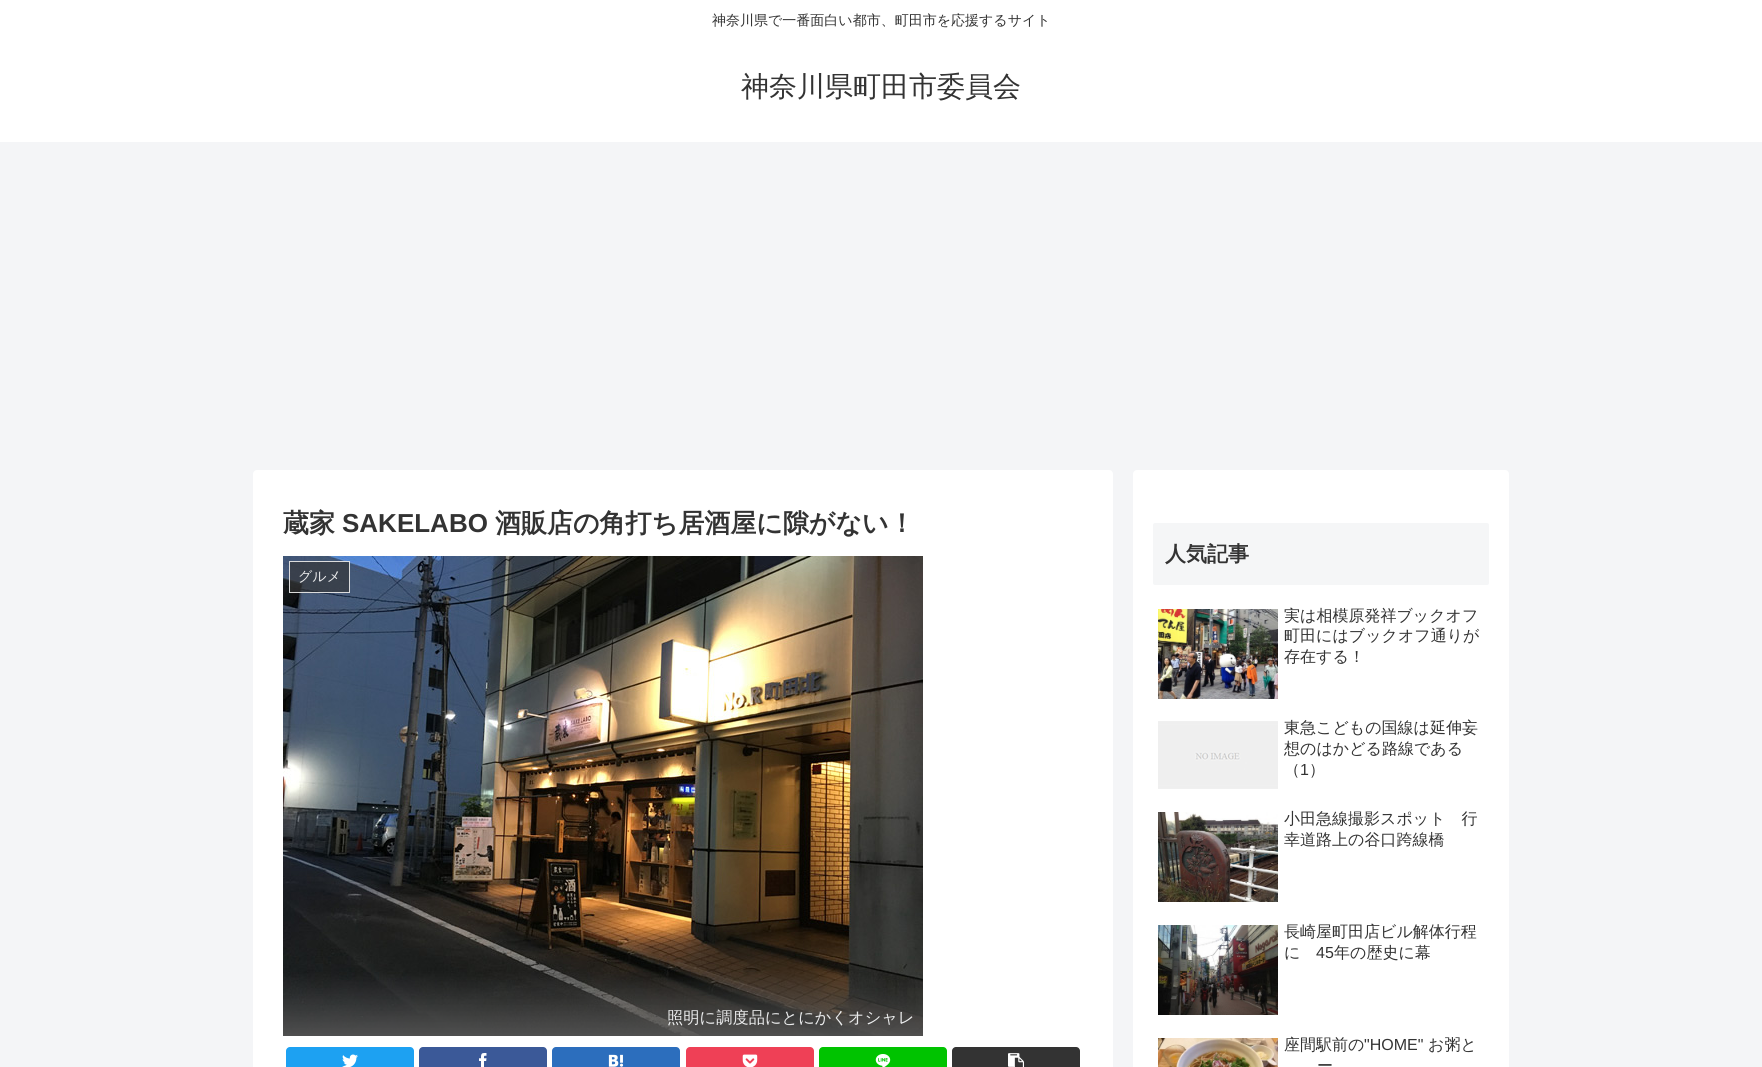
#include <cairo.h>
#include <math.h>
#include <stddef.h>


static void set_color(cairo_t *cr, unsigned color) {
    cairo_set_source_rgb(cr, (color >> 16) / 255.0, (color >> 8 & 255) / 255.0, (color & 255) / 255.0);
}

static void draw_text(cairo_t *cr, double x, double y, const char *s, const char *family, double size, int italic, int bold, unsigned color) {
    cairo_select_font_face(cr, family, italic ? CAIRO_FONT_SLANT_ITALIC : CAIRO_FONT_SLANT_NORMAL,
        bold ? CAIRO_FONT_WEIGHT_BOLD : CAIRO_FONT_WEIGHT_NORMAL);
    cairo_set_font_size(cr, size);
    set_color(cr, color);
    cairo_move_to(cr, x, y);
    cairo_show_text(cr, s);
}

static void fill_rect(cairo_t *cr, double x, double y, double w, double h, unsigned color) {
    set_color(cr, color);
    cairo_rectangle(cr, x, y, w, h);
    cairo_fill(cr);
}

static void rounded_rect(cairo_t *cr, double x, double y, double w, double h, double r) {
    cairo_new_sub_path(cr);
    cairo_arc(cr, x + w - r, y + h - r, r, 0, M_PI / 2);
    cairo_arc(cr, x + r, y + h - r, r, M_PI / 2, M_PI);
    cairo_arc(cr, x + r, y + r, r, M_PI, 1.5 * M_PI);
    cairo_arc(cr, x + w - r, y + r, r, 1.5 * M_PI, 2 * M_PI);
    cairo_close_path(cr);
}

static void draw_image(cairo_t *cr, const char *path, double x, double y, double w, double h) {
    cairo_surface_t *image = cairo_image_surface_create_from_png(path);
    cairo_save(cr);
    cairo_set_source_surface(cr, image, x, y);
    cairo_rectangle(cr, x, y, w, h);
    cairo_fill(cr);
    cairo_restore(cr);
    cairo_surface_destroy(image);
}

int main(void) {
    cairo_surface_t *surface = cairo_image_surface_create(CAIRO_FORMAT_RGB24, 1762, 1067);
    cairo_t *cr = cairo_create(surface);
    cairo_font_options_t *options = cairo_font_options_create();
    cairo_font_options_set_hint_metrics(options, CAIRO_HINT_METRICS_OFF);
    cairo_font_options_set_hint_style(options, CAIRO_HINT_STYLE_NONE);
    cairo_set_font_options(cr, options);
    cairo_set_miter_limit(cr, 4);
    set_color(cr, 0xF4F5F7);
    cairo_paint(cr);
    fill_rect(cr, 0, 0, 1762, 142, 0xFFFFFF);
    draw_text(cr, 712, 25, "神奈川県で一番面白い都市、町田市を応援するサイト", "WenQuanYi Zen Hei Medium", 14, 0, 0, 0x333333);
    draw_text(cr, 741, 96, "神奈川県町田市委員会", "WenQuanYi Zen Hei Medium", 28, 0, 0, 0x333333);
    set_color(cr, 0xFFFFFF);
    rounded_rect(cr, 253, 470, 860, 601, 4);
    cairo_fill(cr);
    draw_text(cr, 283, 532, "蔵家", "WenQuanYi Zen Hei", 26, 0, 1, 0x333333);
    draw_text(cr, 342, 532, "SAKELABO", "Liberation Sans", 26, 0, 1, 0x333333);
    draw_text(cr, 495, 532, "酒販店の角打ち居酒屋に隙がない！", "WenQuanYi Zen Hei", 26, 0, 1, 0x333333);
    draw_image(cr, "assets/img1.png", 283, 556, 640, 480);
    cairo_set_source_rgba(cr, 0.2, 0.2, 0.2, 0.63);
    cairo_rectangle(cr, 289, 561, 61, 32);
    cairo_fill(cr);
    cairo_rectangle(cr, 289.5, 561.5, 60, 31);
    cairo_set_source_rgba(cr, 0.933, 0.933, 0.933, 0.9);
    cairo_set_line_width(cr, 1);
    cairo_stroke(cr);
    draw_text(cr, 298, 581, "グルメ", "WenQuanYi Zen Hei Medium", 14, 0, 0, 0xEBECED);
    draw_text(cr, 667, 1023, "照明に調度品にとにかくオシャレ", "WenQuanYi Zen Hei Medium", 16.25, 0, 0, 0xEBECED);
    set_color(cr, 0x1DA1F2);
    rounded_rect(cr, 286, 1047, 128, 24, 4);
    cairo_fill(cr);
    draw_image(cr, "assets/img2.png", 342, 1054, 16, 13);
    set_color(cr, 0x3B5998);
    rounded_rect(cr, 419, 1047, 128, 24, 4);
    cairo_fill(cr);
    draw_image(cr, "assets/img3.png", 479, 1053, 8, 14);
    set_color(cr, 0x2C6EBD);
    rounded_rect(cr, 552, 1047, 128, 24, 4);
    cairo_fill(cr);
    draw_image(cr, "assets/img4.png", 608, 1054, 16, 13);
    set_color(cr, 0xEF4056);
    rounded_rect(cr, 686, 1047, 128, 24, 4);
    cairo_fill(cr);
    draw_image(cr, "assets/img5.png", 742, 1054, 16, 13);
    set_color(cr, 0x00C300);
    rounded_rect(cr, 819, 1047, 128, 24, 4);
    cairo_fill(cr);
    draw_image(cr, "assets/img6.png", 875, 1054, 16, 13);
    set_color(cr, 0x333333);
    rounded_rect(cr, 952, 1047, 128, 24, 4);
    cairo_fill(cr);
    draw_image(cr, "assets/img7.png", 1008, 1053, 16, 14);
    set_color(cr, 0xFFFFFF);
    rounded_rect(cr, 1133, 470, 376, 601, 4);
    cairo_fill(cr);
    set_color(cr, 0xF5F6F7);
    rounded_rect(cr, 1153, 523, 336, 62, 2);
    cairo_fill(cr);
    draw_text(cr, 1165, 561, "人気記事", "WenQuanYi Zen Hei", 21, 0, 1, 0x333333);
    draw_image(cr, "assets/img8.png", 1158, 609, 120, 90);
    draw_text(cr, 1284, 621, "実は相模原発祥ブックオフ", "WenQuanYi Zen Hei Medium", 16, 0, 0, 0x333333);
    draw_text(cr, 1284, 641, "町田にはブックオフ通りが", "WenQuanYi Zen Hei Medium", 16, 0, 0, 0x333333);
    draw_text(cr, 1284, 662, "存在する！", "WenQuanYi Zen Hei Medium", 16, 0, 0, 0x333333);
    draw_image(cr, "assets/img9.png", 1158, 721, 120, 68);
    draw_text(cr, 1284, 733, "東急こどもの国線は延伸妄", "WenQuanYi Zen Hei Medium", 16, 0, 0, 0x333333);
    draw_text(cr, 1284, 754, "想のはかどる路線である", "WenQuanYi Zen Hei Medium", 16, 0, 0, 0x333333);
    draw_text(cr, 1284, 775, "（", "WenQuanYi Zen Hei Medium", 16, 0, 0, 0x333333);
    draw_text(cr, 1300, 775, "1", "Liberation Sans", 16, 0, 0, 0x333333);
    draw_text(cr, 1309, 775, "）", "WenQuanYi Zen Hei Medium", 16, 0, 0, 0x333333);
    draw_image(cr, "assets/img10.png", 1158, 812, 120, 90);
    draw_text(cr, 1284, 824, "小田急線撮影スポット　行", "WenQuanYi Zen Hei Medium", 16, 0, 0, 0x333333);
    draw_text(cr, 1284, 845, "幸道路上の谷口跨線橋", "WenQuanYi Zen Hei Medium", 16, 0, 0, 0x333333);
    draw_image(cr, "assets/img11.png", 1158, 925, 120, 90);
    draw_text(cr, 1284, 937, "長崎屋町田店ビル解体行程", "WenQuanYi Zen Hei Medium", 16, 0, 0, 0x333333);
    draw_text(cr, 1284, 958, "に", "WenQuanYi Zen Hei Medium", 16, 0, 0, 0x333333);
    draw_text(cr, 1316, 958, "45", "Liberation Sans", 16, 0, 0, 0x333333);
    draw_text(cr, 1334, 958, "年の歴史に幕", "WenQuanYi Zen Hei Medium", 16, 0, 0, 0x333333);
    draw_image(cr, "assets/img12.png", 1158, 1038, 120, 29);
    draw_text(cr, 1284, 1050, "座間駅前の", "WenQuanYi Zen Hei Medium", 16, 0, 0, 0x333333);
    draw_text(cr, 1364, 1050, "\"HOME\"", "Liberation Sans", 16, 0, 0, 0x333333);
    draw_text(cr, 1428, 1050, "お粥と", "WenQuanYi Zen Hei Medium", 16, 0, 0, 0x333333);
    draw_text(cr, 1317, 1071, "ー", "WenQuanYi Zen Hei Medium", 16, 0, 0, 0x333333);
    cairo_surface_write_to_png(surface, "output.png");
    cairo_font_options_destroy(options);
    cairo_destroy(cr);
    cairo_surface_destroy(surface);
    return 0;
}
